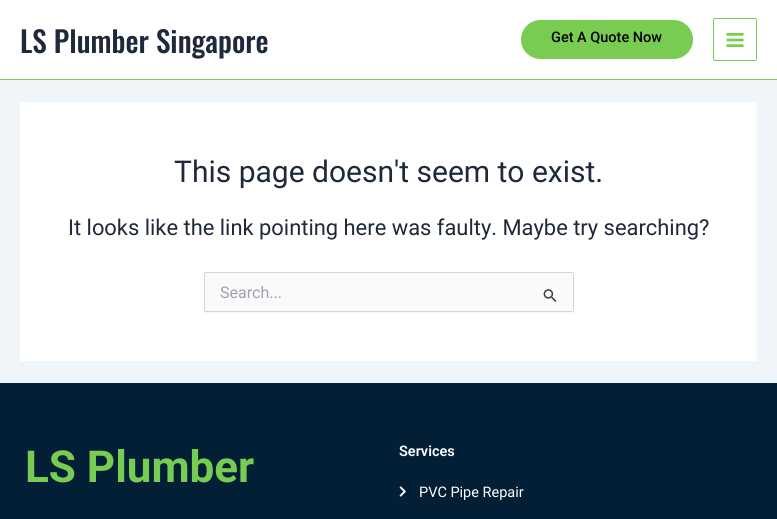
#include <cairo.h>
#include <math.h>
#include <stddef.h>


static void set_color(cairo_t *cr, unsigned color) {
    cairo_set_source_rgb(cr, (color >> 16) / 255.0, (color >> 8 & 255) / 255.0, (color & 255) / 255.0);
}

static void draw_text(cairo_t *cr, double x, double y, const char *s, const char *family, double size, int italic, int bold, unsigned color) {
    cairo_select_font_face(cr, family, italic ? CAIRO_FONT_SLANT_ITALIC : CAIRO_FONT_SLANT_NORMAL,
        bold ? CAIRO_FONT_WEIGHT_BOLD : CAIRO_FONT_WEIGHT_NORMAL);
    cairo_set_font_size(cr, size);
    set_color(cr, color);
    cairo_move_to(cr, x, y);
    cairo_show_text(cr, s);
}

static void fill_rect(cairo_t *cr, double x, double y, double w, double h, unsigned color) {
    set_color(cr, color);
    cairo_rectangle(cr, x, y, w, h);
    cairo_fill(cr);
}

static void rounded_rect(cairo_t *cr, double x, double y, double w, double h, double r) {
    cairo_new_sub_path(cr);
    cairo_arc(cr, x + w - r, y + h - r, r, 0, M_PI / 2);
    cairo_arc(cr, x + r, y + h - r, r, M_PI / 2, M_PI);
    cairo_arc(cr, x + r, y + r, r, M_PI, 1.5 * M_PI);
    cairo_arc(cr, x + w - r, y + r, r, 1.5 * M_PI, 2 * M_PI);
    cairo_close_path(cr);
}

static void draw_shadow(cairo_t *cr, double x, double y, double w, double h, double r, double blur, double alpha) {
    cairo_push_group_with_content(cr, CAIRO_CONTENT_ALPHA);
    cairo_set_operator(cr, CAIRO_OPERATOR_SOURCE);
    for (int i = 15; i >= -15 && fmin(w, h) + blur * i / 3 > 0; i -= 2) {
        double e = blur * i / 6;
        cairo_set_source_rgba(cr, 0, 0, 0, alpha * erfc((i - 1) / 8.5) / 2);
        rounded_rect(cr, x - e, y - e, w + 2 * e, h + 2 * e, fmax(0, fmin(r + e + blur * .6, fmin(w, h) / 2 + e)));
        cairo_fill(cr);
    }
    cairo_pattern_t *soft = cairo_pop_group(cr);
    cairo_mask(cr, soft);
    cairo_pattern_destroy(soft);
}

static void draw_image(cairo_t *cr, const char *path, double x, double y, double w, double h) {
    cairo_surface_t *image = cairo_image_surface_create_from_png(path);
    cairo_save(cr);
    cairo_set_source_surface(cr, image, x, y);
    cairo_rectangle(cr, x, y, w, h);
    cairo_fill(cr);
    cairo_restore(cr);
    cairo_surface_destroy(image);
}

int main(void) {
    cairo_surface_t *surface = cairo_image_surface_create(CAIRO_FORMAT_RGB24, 777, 519);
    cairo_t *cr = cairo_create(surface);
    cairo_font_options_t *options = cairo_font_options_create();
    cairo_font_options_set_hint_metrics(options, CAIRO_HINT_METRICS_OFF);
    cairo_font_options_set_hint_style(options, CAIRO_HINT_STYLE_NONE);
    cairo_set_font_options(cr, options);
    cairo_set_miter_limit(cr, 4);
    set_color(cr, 0xF0F5FA);
    cairo_paint(cr);
    fill_rect(cr, 0, 0, 777, 79, 0xFFFFFF);
    fill_rect(cr, 0, 79, 777, 1, 0x79CC52);
    draw_text(cr, 20, 53, "LS Plumber Singapore", "Oswald Medium", 29.25, 0, 0, 0x1E293B);
    set_color(cr, 0x79CC52);
    rounded_rect(cr, 521, 20, 172, 39, 19.5);
    cairo_fill(cr);
    draw_text(cr, 551, 42, "Get A Quote Now", "Roboto Medium", 14.5, 0, 0, 0x000000);
    rounded_rect(cr, 713.5, 18.5, 43, 42, 1.5);
    set_color(cr, 0x79CC52);
    cairo_set_line_width(cr, 1);
    cairo_stroke(cr);
    draw_image(cr, "assets/img1.png", 726, 32, 18, 16);
    fill_rect(cr, 20, 102, 737, 259, 0xFFFFFF);
    draw_text(cr, 174, 182, "This page doesn't seem to exist.", "Roboto", 30, 0, 0, 0x1E293B);
    draw_text(cr, 68, 235, "It looks like the link pointing here was faulty. Maybe try searching?", "Roboto", 21.9, 0, 0, 0x1E293B);
    set_color(cr, 0x000000);
    draw_shadow(cr, 204, 273, 370, 40, 2, 1, 0.05);
    set_color(cr, 0xFAFAFA);
    rounded_rect(cr, 204.5, 272.5, 369, 39, 1.5);
    cairo_fill_preserve(cr);
    set_color(cr, 0xD1D5DB);
    cairo_stroke(cr);
    draw_text(cr, 220, 298, "Search...", "Roboto", 16, 0, 0, 0x9CA3AF);
    draw_image(cr, "assets/img2.png", 543, 289, 14, 13);
    fill_rect(cr, 0, 383, 777, 136, 0x021F36);
    draw_text(cr, 25, 482, "LS Plumber", "Roboto", 44, 0, 1, 0x79CC52);
    draw_text(cr, 399, 456, "Services", "Roboto SemiBold", 14.5, 0, 0, 0xFFFFFF);
    draw_image(cr, "assets/img3.png", 399, 486, 7, 11);
    draw_text(cr, 419, 497, "PVC Pipe Repair", "Roboto", 14.5, 0, 0, 0xFFFFFF);
    cairo_surface_write_to_png(surface, "output.png");
    cairo_font_options_destroy(options);
    cairo_destroy(cr);
    cairo_surface_destroy(surface);
    return 0;
}
